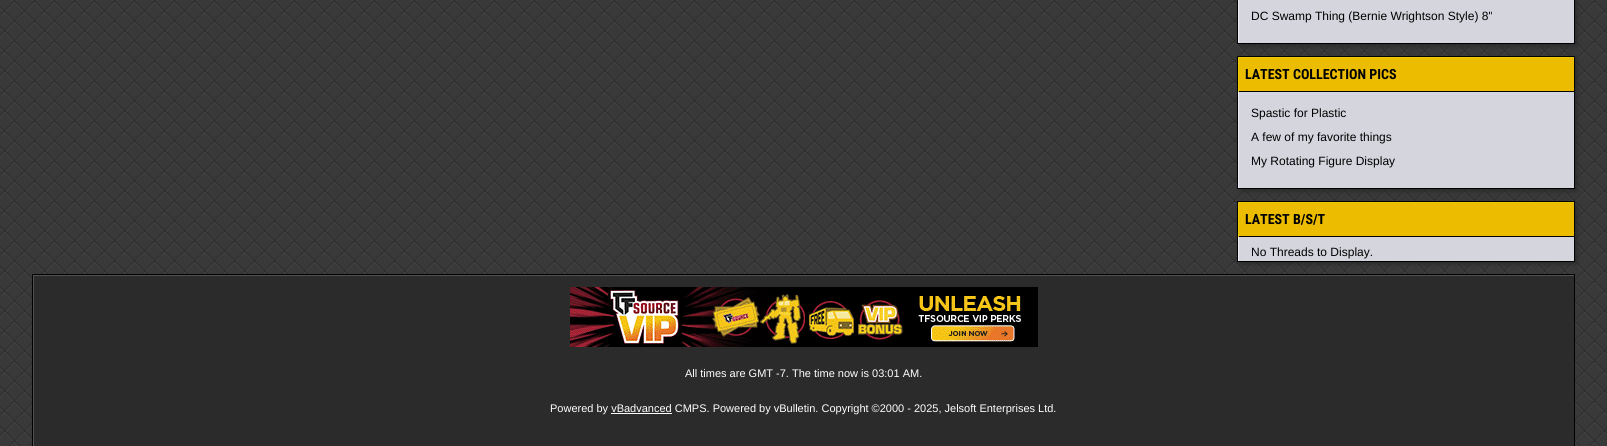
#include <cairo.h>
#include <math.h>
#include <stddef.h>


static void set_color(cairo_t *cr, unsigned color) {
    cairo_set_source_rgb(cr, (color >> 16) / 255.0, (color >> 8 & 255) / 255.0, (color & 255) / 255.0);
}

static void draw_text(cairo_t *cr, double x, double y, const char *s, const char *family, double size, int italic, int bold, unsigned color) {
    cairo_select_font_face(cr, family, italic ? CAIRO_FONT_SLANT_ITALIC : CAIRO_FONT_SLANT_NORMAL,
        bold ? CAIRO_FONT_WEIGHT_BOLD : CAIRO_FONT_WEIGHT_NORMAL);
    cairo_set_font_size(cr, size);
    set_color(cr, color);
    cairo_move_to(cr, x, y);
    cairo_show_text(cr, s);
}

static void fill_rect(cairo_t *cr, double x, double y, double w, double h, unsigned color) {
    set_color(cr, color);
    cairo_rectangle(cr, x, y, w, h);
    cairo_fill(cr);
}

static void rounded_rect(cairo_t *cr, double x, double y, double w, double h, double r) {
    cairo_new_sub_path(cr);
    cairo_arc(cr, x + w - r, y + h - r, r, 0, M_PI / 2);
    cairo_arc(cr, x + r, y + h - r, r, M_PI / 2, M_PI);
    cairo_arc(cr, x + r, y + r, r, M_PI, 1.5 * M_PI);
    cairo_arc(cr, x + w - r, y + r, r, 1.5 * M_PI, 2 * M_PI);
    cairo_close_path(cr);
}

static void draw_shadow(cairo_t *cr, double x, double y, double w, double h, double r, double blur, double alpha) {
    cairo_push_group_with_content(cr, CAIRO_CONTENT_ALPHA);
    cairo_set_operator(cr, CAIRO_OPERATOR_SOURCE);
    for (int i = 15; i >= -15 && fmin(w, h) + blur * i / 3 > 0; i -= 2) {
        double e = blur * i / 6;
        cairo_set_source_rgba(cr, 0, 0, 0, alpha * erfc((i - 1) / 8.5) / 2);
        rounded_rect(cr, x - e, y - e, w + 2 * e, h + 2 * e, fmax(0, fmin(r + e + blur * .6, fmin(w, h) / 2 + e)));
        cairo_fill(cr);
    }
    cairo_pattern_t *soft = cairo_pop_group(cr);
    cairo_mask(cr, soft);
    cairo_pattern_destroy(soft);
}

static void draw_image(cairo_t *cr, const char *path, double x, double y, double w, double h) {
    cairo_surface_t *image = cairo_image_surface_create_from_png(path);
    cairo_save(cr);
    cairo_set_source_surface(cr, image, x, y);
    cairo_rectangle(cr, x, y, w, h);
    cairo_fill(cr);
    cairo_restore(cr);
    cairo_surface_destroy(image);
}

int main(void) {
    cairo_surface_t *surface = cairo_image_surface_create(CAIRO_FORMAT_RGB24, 1607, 446);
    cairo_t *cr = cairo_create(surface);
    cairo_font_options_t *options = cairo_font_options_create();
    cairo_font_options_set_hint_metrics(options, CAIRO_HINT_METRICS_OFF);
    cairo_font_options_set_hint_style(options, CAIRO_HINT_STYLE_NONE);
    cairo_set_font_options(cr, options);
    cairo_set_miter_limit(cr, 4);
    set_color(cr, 0xFFFFFF);
    cairo_paint(cr);
    draw_image(cr, "assets/img1.png", 0, 0, 1607, 446);
    set_color(cr, 0x29292B);
    draw_shadow(cr, 1241, -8, 336, 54, 0, 2.5, 1);
    fill_rect(cr, 1237, 0, 338, 44, 0x000000);
    fill_rect(cr, 1238, 0, 336, 1, 0xD5D5DE);
    fill_rect(cr, 1238, 0, 1, 43, 0xEDEDF7);
    fill_rect(cr, 1239, 1, 335, 42, 0xD5D5DE);
    draw_text(cr, 1251, 20, "DC Swamp Thing (Bernie Wrightson Style) 8\"", "Liberation Sans", 12, 0, 0, 0x000000);
    set_color(cr, 0x29292B);
    draw_shadow(cr, 1241, 60, 336, 131, 0, 2.5, 1);
    fill_rect(cr, 1237, 56, 338, 133, 0x000000);
    fill_rect(cr, 1239, 58, 335, 33, 0xEBBC00);
    fill_rect(cr, 1238, 57, 336, 1, 0xEBCB00);
    fill_rect(cr, 1238, 57, 1, 35, 0xEBCB00);
    draw_text(cr, 1245, 79, "LATEST COLLECTION PICS", "Roboto Condensed", 14, 0, 1, 0x000000);
    fill_rect(cr, 1238, 92, 336, 6, 0xD5D5DE);
    fill_rect(cr, 1238, 92, 1, 96, 0xEDEDF7);
    fill_rect(cr, 1239, 98, 335, 90, 0xD5D5DE);
    draw_text(cr, 1251, 117, "Spastic for Plastic", "Liberation Sans", 12, 0, 0, 0x000000);
    draw_text(cr, 1251, 141, "A few of my favorite things", "Liberation Sans", 12, 0, 0, 0x000000);
    draw_text(cr, 1251, 165, "My Rotating Figure Display", "Liberation Sans", 12, 0, 0, 0x000000);
    set_color(cr, 0x29292B);
    draw_shadow(cr, 1241, 205, 336, 59, 0, 2.5, 1);
    fill_rect(cr, 1237, 201, 338, 61, 0x000000);
    fill_rect(cr, 1239, 203, 335, 33, 0xEBBC00);
    fill_rect(cr, 1238, 202, 336, 1, 0xEBCB00);
    fill_rect(cr, 1238, 202, 1, 35, 0xEBCB00);
    draw_text(cr, 1245, 224, "LATEST B/S/T", "Roboto Condensed", 14, 0, 1, 0x000000);
    fill_rect(cr, 1239, 237, 335, 24, 0xD5D5DE);
    fill_rect(cr, 1238, 237, 1, 24, 0xEDEDF7);
    draw_text(cr, 1251, 256, "No Threads to Display.", "Liberation Sans", 12, 0, 0, 0x000000);
    fill_rect(cr, 34, 276, 1540, 170, 0x2B2B2B);
    cairo_save(cr);
    cairo_rectangle(cr, 33, 275, 1541, 171);
    cairo_clip(cr);
    set_color(cr, 0x525252);
    cairo_set_fill_rule(cr, CAIRO_FILL_RULE_EVEN_ODD);
    cairo_new_path(cr);
    cairo_move_to(cr, -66, 176);
    cairo_line_to(cr, 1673, 176);
    cairo_line_to(cr, 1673, 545);
    cairo_line_to(cr, -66, 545);
    cairo_close_path(cr);
    cairo_move_to(cr, 34, 276);
    cairo_line_to(cr, 1575, 276);
    cairo_line_to(cr, 1575, 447);
    cairo_line_to(cr, 34, 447);
    cairo_close_path(cr);
    cairo_fill(cr);
    cairo_restore(cr);
    fill_rect(cr, 32, 274, 1543, 1, 0x000000);
    fill_rect(cr, 1574, 274, 1, 172, 0x000000);
    fill_rect(cr, 32, 274, 1, 172, 0x000000);
    draw_image(cr, "assets/img2.png", 570, 287, 468, 60);
    draw_text(cr, 685, 377, "All times are GMT -7. The time now is 03:01 AM.", "Liberation Sans", 11, 0, 0, 0xFFFFFF);
    draw_text(cr, 550, 412, "Powered by vBadvanced CMPS. Powered by vBulletin. Copyright ©2000 - 2025, Jelsoft Enterprises Ltd.", "Liberation Sans", 11, 0, 0, 0xFFFFFF);
    fill_rect(cr, 611, 413, 61, 1, 0xFFFFFF);
    cairo_surface_write_to_png(surface, "output.png");
    cairo_font_options_destroy(options);
    cairo_destroy(cr);
    cairo_surface_destroy(surface);
    return 0;
}
